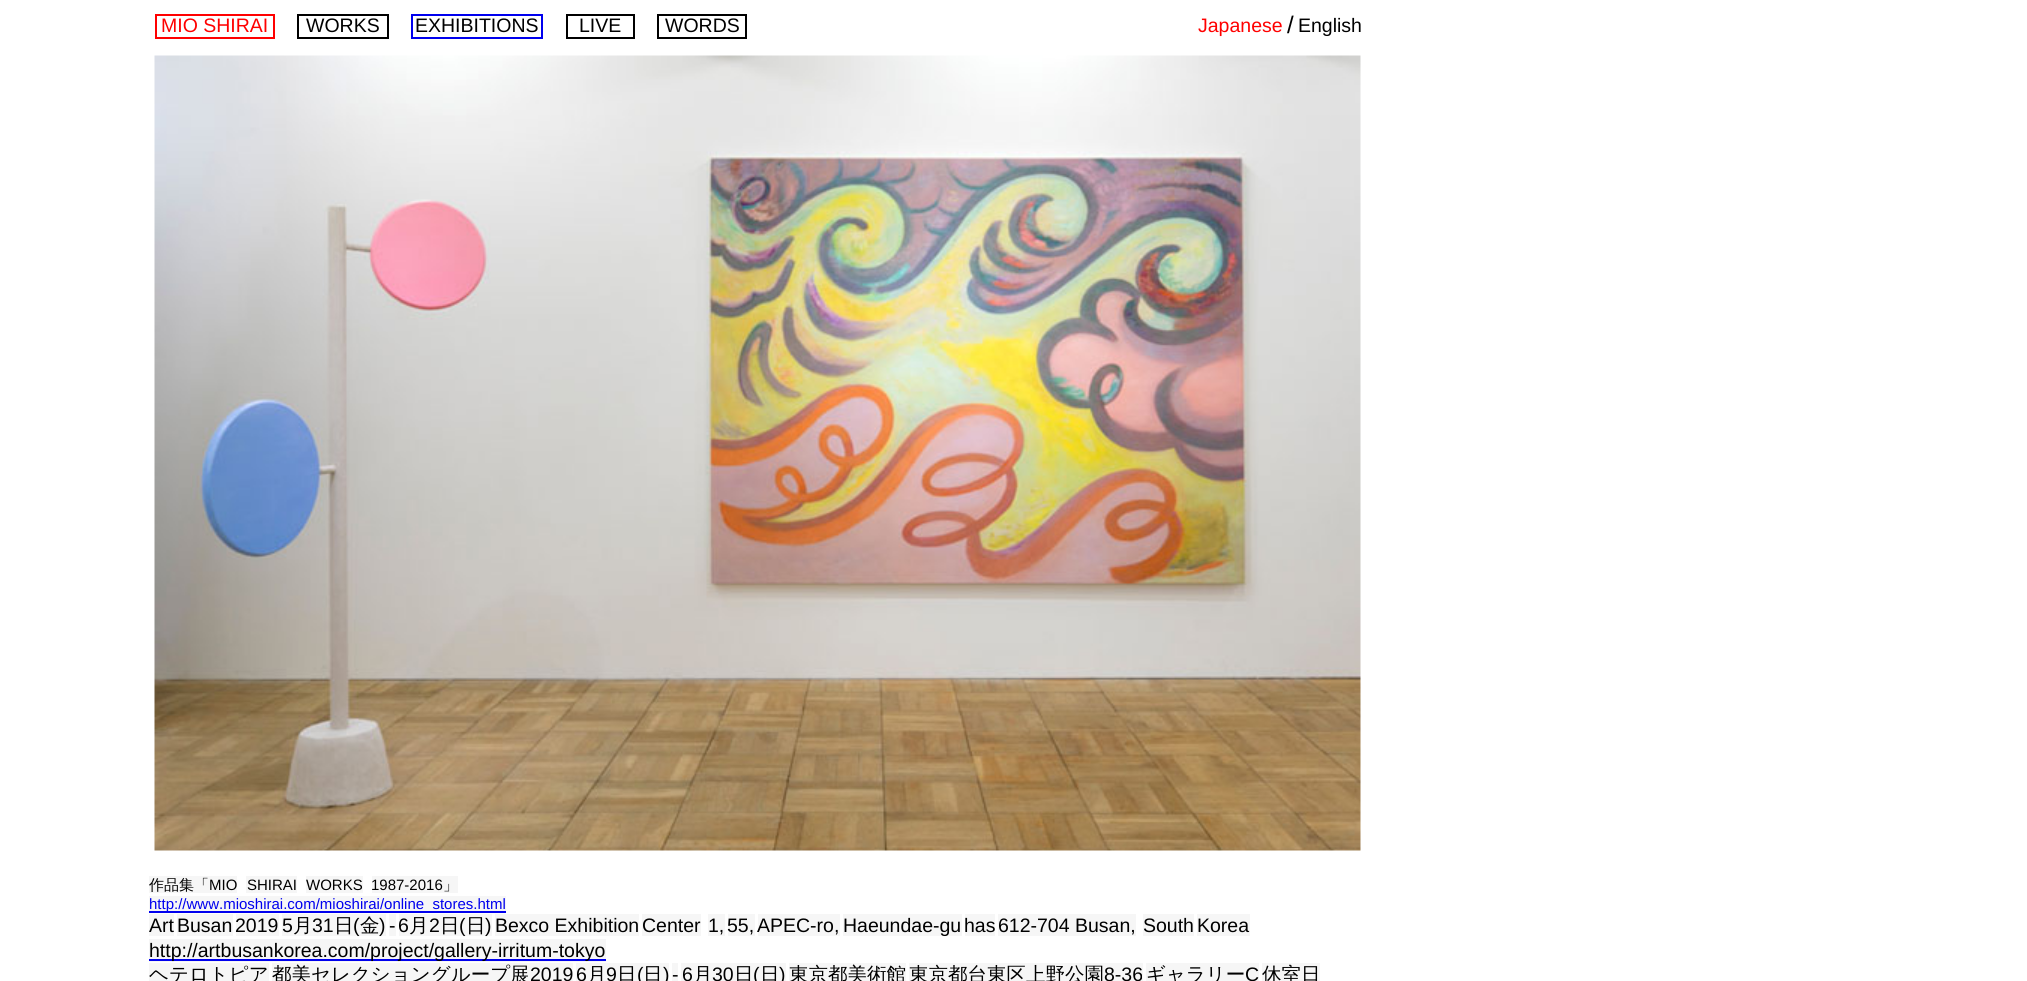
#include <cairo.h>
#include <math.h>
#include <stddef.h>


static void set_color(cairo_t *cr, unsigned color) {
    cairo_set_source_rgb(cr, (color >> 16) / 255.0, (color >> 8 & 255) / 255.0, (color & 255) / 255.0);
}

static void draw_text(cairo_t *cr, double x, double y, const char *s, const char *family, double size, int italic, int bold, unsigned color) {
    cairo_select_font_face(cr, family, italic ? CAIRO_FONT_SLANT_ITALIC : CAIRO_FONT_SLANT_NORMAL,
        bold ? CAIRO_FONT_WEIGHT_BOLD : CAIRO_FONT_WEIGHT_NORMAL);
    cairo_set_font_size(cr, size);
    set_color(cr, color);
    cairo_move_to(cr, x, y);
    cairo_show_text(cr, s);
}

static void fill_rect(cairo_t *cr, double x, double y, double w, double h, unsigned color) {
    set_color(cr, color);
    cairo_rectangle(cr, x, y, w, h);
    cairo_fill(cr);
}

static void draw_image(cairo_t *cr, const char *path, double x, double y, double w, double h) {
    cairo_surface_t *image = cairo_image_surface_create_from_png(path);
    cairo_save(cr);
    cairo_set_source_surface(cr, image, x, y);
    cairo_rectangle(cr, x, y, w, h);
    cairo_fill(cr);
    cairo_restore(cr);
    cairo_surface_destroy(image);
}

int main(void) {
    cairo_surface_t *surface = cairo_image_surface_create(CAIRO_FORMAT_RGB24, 2027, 981);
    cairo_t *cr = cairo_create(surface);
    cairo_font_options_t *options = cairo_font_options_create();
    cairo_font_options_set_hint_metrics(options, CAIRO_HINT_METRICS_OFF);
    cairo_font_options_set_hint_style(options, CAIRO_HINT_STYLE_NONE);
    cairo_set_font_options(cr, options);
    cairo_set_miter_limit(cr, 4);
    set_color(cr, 0xFFFFFF);
    cairo_paint(cr);
    cairo_rectangle(cr, 156, 15, 118, 23);
    set_color(cr, 0xFF0000);
    cairo_stroke(cr);
    draw_text(cr, 161, 32, "MIO SHIRAI", "Liberation Sans", 19.5, 0, 0, 0xFF0000);
    cairo_rectangle(cr, 298, 15, 90, 23);
    set_color(cr, 0x000000);
    cairo_stroke(cr);
    draw_text(cr, 306, 32, "WORKS", "Liberation Sans", 19.5, 0, 0, 0x000000);
    cairo_rectangle(cr, 412, 15, 130, 23);
    set_color(cr, 0x0000EE);
    cairo_stroke(cr);
    draw_text(cr, 415, 32, "EXHIBITIONS", "Liberation Sans", 19.5, 0, 0, 0x000000);
    cairo_rectangle(cr, 567, 15, 67, 23);
    cairo_stroke(cr);
    draw_text(cr, 579, 32, "LIVE", "Liberation Sans", 19.5, 0, 0, 0x000000);
    cairo_rectangle(cr, 658, 15, 88, 23);
    cairo_stroke(cr);
    draw_text(cr, 665, 32, "WORDS", "Liberation Sans", 19.5, 0, 0, 0x000000);
    draw_text(cr, 1198, 32, "Japanese", "Liberation Sans", 19.5, 0, 0, 0xFF0000);
    draw_text(cr, 1287, 33, "/", "Liberation Sans", 24, 0, 0, 0x000000);
    draw_text(cr, 1298, 32, "English", "Liberation Sans", 19.5, 0, 0, 0x000000);
    draw_image(cr, "assets/img1.png", 154, 55, 1207, 796);
    fill_rect(cr, 149, 876, 88, 17, 0xF6F6F6);
    draw_text(cr, 149, 890, "作品集「", "WenQuanYi Zen Hei Medium", 15, 0, 0, 0x000000);
    draw_text(cr, 209, 890, "MIO", "Liberation Sans", 15, 0, 0, 0x000000);
    fill_rect(cr, 246, 876, 51, 17, 0xF6F6F6);
    draw_text(cr, 247, 890, "SHIRAI", "Liberation Sans", 15, 0, 0, 0x000000);
    fill_rect(cr, 306, 876, 57, 17, 0xF6F6F6);
    draw_text(cr, 306, 890, "WORKS", "Liberation Sans", 15, 0, 0, 0x000000);
    fill_rect(cr, 372, 876, 86, 17, 0xF6F6F6);
    draw_text(cr, 371, 890, "1987-2016", "Liberation Sans", 15, 0, 0, 0x000000);
    draw_text(cr, 443, 890, "」", "WenQuanYi Zen Hei Medium", 15, 0, 0, 0x000000);
    fill_rect(cr, 149, 896, 357, 15, 0xF6F6F6);
    fill_rect(cr, 149, 911, 357, 2, 0x0000EE);
    draw_text(cr, 149, 909, "http://www.mioshirai.com/mioshirai/online_stores.html", "Liberation Sans", 15, 0, 0, 0x0000EE);
    fill_rect(cr, 149, 914, 25, 22, 0xF6F6F6);
    draw_text(cr, 149, 932, "Art", "Liberation Sans", 19.5, 0, 0, 0x000000);
    fill_rect(cr, 177, 914, 56, 22, 0xF6F6F6);
    draw_text(cr, 177, 932, "Busan", "Liberation Sans", 19.5, 0, 0, 0x000000);
    fill_rect(cr, 236, 914, 43, 22, 0xF6F6F6);
    draw_text(cr, 235, 932, "2019", "Liberation Sans", 19.5, 0, 0, 0x000000);
    fill_rect(cr, 282, 914, 104, 22, 0xF6F6F6);
    draw_text(cr, 282, 932, "5", "Liberation Sans", 19.5, 0, 0, 0x000000);
    draw_text(cr, 293, 932, "月", "WenQuanYi Zen Hei Medium", 19.5, 0, 0, 0x000000);
    draw_text(cr, 312, 932, "31", "Liberation Sans", 19.5, 0, 0, 0x000000);
    draw_text(cr, 334, 932, "日", "WenQuanYi Zen Hei Medium", 19.5, 0, 0, 0x000000);
    draw_text(cr, 353, 932, "(", "Liberation Sans", 19.5, 0, 0, 0x000000);
    draw_text(cr, 360, 932, "金", "WenQuanYi Zen Hei Medium", 19.5, 0, 0, 0x000000);
    draw_text(cr, 379, 932, ")", "Liberation Sans", 19.5, 0, 0, 0x000000);
    fill_rect(cr, 389, 914, 7, 22, 0xF6F6F6);
    draw_text(cr, 389, 932, "-", "Liberation Sans", 19.5, 0, 0, 0x000000);
    fill_rect(cr, 399, 914, 93, 22, 0xF6F6F6);
    draw_text(cr, 398, 932, "6", "Liberation Sans", 19.5, 0, 0, 0x000000);
    draw_text(cr, 409, 932, "月", "WenQuanYi Zen Hei Medium", 19.5, 0, 0, 0x000000);
    draw_text(cr, 429, 932, "2", "Liberation Sans", 19.5, 0, 0, 0x000000);
    draw_text(cr, 440, 932, "日", "WenQuanYi Zen Hei Medium", 19.5, 0, 0, 0x000000);
    draw_text(cr, 459, 932, "(", "Liberation Sans", 19.5, 0, 0, 0x000000);
    draw_text(cr, 466, 932, "日", "WenQuanYi Zen Hei Medium", 19.5, 0, 0, 0x000000);
    draw_text(cr, 485, 932, ")", "Liberation Sans", 19.5, 0, 0, 0x000000);
    fill_rect(cr, 495, 914, 144, 22, 0xF6F6F6);
    draw_text(cr, 495, 932, "Bexco Exhibition", "Liberation Sans", 19.5, 0, 0, 0x000000);
    fill_rect(cr, 642, 914, 59, 22, 0xF6F6F6);
    draw_text(cr, 642, 932, "Center", "Liberation Sans", 19.5, 0, 0, 0x000000);
    fill_rect(cr, 708, 914, 17, 22, 0xF6F6F6);
    draw_text(cr, 708, 932, "1,", "Liberation Sans", 19.5, 0, 0, 0x000000);
    fill_rect(cr, 728, 914, 27, 22, 0xF6F6F6);
    draw_text(cr, 727, 932, "55,", "Liberation Sans", 19.5, 0, 0, 0x000000);
    fill_rect(cr, 758, 914, 82, 22, 0xF6F6F6);
    draw_text(cr, 757, 932, "APEC-ro,", "Liberation Sans", 19.5, 0, 0, 0x000000);
    fill_rect(cr, 843, 914, 119, 22, 0xF6F6F6);
    draw_text(cr, 843, 932, "Haeundae-gu", "Liberation Sans", 19.5, 0, 0, 0x000000);
    fill_rect(cr, 965, 914, 30, 22, 0xF6F6F6);
    draw_text(cr, 964, 932, "has", "Liberation Sans", 19.5, 0, 0, 0x000000);
    fill_rect(cr, 998, 914, 138, 22, 0xF6F6F6);
    draw_text(cr, 998, 932, "612-704 Busan,", "Liberation Sans", 19.5, 0, 0, 0x000000);
    fill_rect(cr, 1143, 914, 51, 22, 0xF6F6F6);
    draw_text(cr, 1143, 932, "South", "Liberation Sans", 19.5, 0, 0, 0x000000);
    fill_rect(cr, 1197, 914, 53, 22, 0xF6F6F6);
    draw_text(cr, 1197, 932, "Korea", "Liberation Sans", 19.5, 0, 0, 0x000000);
    fill_rect(cr, 149, 939, 457, 23, 0xF6F6F6);
    fill_rect(cr, 149, 959, 457, 2, 0x0000EE);
    draw_text(cr, 149, 957, "http://artbusankorea.com/project/gallery-irritum-tokyo", "Liberation Sans", 19.5, 0, 0, 0x000000);
    fill_rect(cr, 149, 963, 120, 18, 0xF6F6F6);
    draw_text(cr, 149, 981, "ヘテロトピア", "WenQuanYi Zen Hei Medium", 19.5, 0, 0, 0x000000);
    fill_rect(cr, 272, 963, 301, 18, 0xF6F6F6);
    draw_text(cr, 272, 981, "都美セレクショングループ展", "WenQuanYi Zen Hei Medium", 19.5, 0, 0, 0x000000);
    draw_text(cr, 530, 981, "2019", "Liberation Sans", 19.5, 0, 0, 0x000000);
    fill_rect(cr, 576, 963, 93, 18, 0xF6F6F6);
    draw_text(cr, 576, 981, "6", "Liberation Sans", 19.5, 0, 0, 0x000000);
    draw_text(cr, 587, 981, "月", "WenQuanYi Zen Hei Medium", 19.5, 0, 0, 0x000000);
    draw_text(cr, 606, 981, "9", "Liberation Sans", 19.5, 0, 0, 0x000000);
    draw_text(cr, 617, 981, "日", "WenQuanYi Zen Hei Medium", 19.5, 0, 0, 0x000000);
    draw_text(cr, 637, 981, "(", "Liberation Sans", 19.5, 0, 0, 0x000000);
    draw_text(cr, 643, 981, "日", "WenQuanYi Zen Hei Medium", 19.5, 0, 0, 0x000000);
    draw_text(cr, 663, 981, ")", "Liberation Sans", 19.5, 0, 0, 0x000000);
    fill_rect(cr, 672, 963, 6, 18, 0xF6F6F6);
    draw_text(cr, 672, 981, "-", "Liberation Sans", 19.5, 0, 0, 0x000000);
    fill_rect(cr, 681, 963, 105, 18, 0xF6F6F6);
    draw_text(cr, 682, 981, "6", "Liberation Sans", 19.5, 0, 0, 0x000000);
    draw_text(cr, 693, 981, "月", "WenQuanYi Zen Hei Medium", 19.5, 0, 0, 0x000000);
    draw_text(cr, 712, 981, "30", "Liberation Sans", 19.5, 0, 0, 0x000000);
    draw_text(cr, 734, 981, "日", "WenQuanYi Zen Hei Medium", 19.5, 0, 0, 0x000000);
    draw_text(cr, 753, 981, "(", "Liberation Sans", 19.5, 0, 0, 0x000000);
    draw_text(cr, 760, 981, "日", "WenQuanYi Zen Hei Medium", 19.5, 0, 0, 0x000000);
    draw_text(cr, 779, 981, ")", "Liberation Sans", 19.5, 0, 0, 0x000000);
    fill_rect(cr, 789, 963, 117, 18, 0xF6F6F6);
    draw_text(cr, 789, 981, "東京都美術館", "WenQuanYi Zen Hei Medium", 19.5, 0, 0, 0x000000);
    fill_rect(cr, 909, 963, 234, 18, 0xF6F6F6);
    draw_text(cr, 909, 981, "東京都台東区上野公園", "WenQuanYi Zen Hei Medium", 19.5, 0, 0, 0x000000);
    draw_text(cr, 1104, 981, "8-36", "Liberation Sans", 19.5, 0, 0, 0x000000);
    fill_rect(cr, 1146, 963, 113, 18, 0xF6F6F6);
    draw_text(cr, 1146, 981, "ギャラリー", "WenQuanYi Zen Hei Medium", 19.5, 0, 0, 0x000000);
    draw_text(cr, 1245, 981, "C", "Liberation Sans", 19.5, 0, 0, 0x000000);
    fill_rect(cr, 1262, 963, 58, 18, 0xF6F6F6);
    draw_text(cr, 1262, 981, "休室日", "WenQuanYi Zen Hei Medium", 19.5, 0, 0, 0x000000);
    cairo_surface_write_to_png(surface, "output.png");
    cairo_font_options_destroy(options);
    cairo_destroy(cr);
    cairo_surface_destroy(surface);
    return 0;
}
